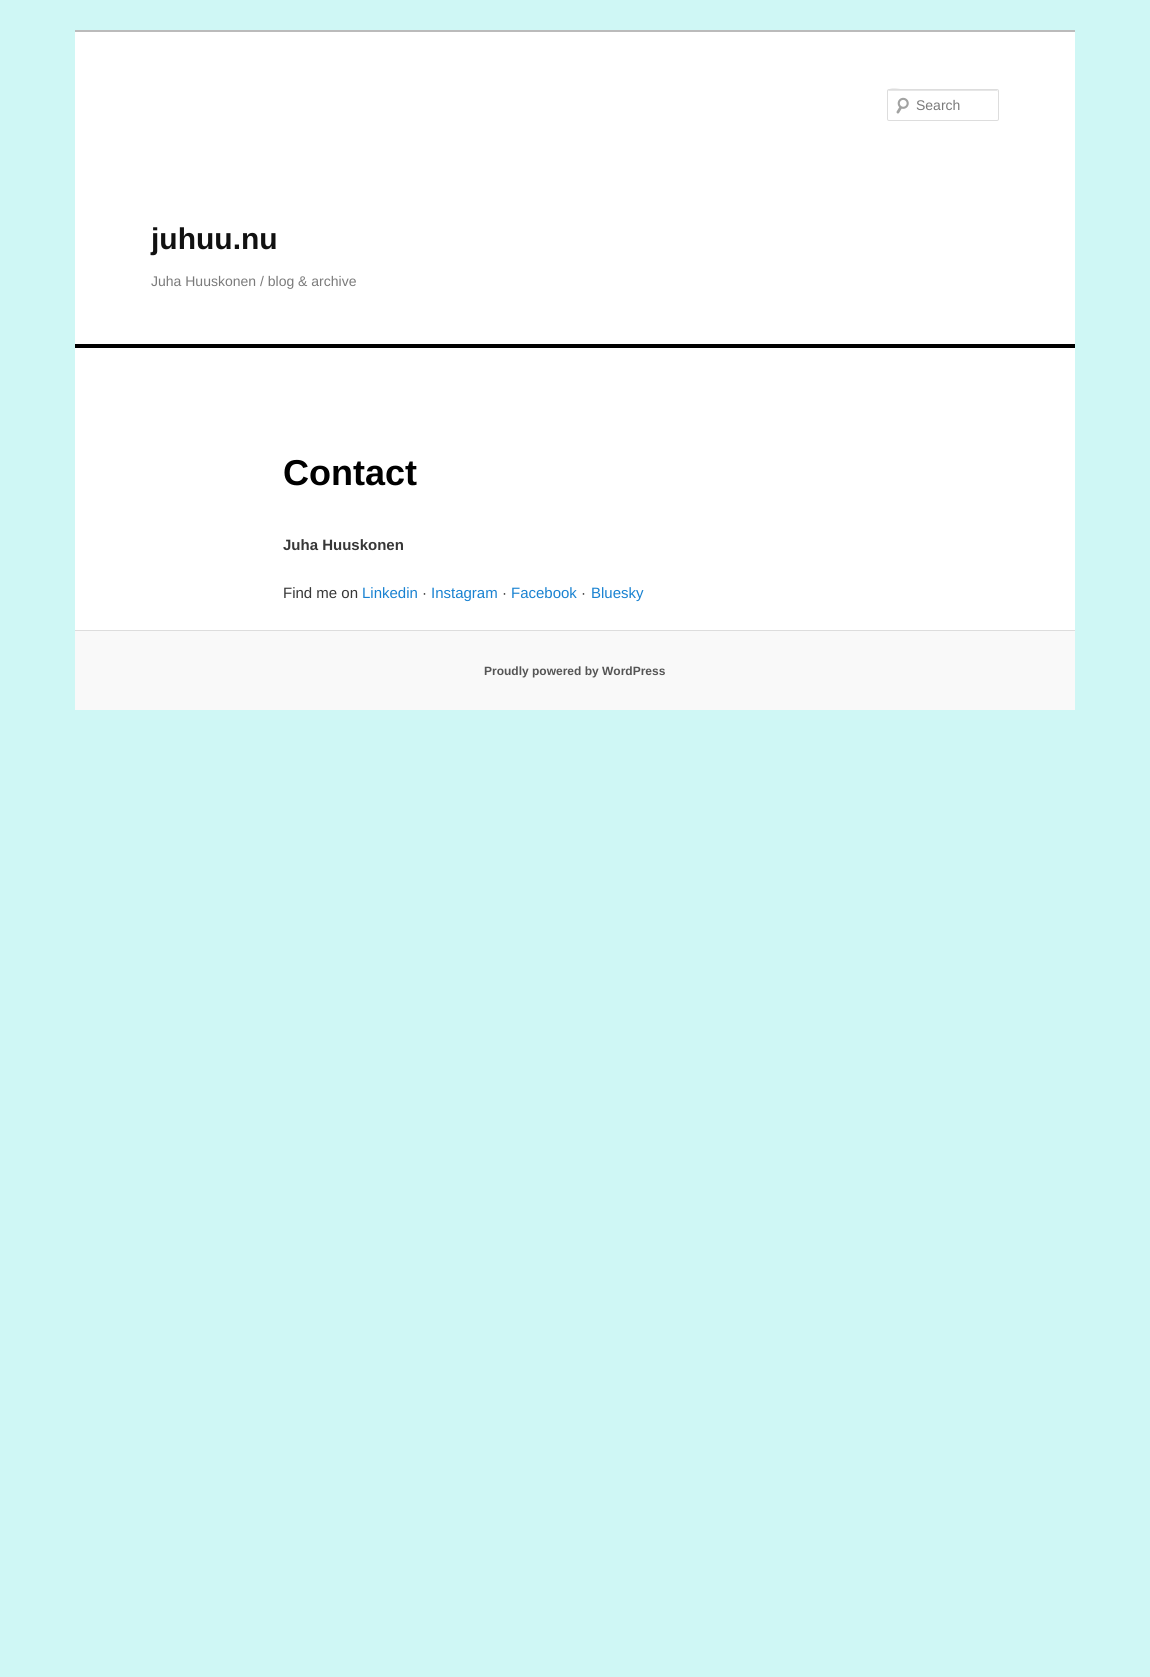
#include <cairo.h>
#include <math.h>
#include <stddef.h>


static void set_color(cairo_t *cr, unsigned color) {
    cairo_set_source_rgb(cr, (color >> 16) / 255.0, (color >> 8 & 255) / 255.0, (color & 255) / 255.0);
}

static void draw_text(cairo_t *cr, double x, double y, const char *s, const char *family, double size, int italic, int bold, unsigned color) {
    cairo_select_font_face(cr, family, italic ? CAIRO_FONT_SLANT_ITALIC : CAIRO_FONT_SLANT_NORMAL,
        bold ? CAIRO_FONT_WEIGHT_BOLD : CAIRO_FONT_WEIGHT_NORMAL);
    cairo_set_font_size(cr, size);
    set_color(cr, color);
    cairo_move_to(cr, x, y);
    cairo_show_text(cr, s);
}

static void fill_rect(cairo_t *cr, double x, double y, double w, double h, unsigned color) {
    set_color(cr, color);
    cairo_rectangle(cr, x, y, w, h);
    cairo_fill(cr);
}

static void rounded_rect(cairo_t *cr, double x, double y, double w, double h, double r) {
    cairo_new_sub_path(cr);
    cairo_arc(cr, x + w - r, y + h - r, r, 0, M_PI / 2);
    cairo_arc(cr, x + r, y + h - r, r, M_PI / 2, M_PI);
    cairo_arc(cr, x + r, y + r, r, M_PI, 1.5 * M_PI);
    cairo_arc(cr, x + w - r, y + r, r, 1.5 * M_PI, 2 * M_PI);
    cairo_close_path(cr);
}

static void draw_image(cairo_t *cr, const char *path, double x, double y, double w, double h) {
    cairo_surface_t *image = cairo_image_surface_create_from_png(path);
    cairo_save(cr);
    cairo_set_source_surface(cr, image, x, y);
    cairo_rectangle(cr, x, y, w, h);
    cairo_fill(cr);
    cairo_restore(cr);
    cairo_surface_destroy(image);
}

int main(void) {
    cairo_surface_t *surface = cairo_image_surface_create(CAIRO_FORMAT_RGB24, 1150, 1677);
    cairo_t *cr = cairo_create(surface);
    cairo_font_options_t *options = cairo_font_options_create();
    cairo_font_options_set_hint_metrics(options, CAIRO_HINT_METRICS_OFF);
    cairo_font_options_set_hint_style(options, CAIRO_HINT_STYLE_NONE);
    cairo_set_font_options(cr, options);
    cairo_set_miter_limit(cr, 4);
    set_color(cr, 0xCFF7F5);
    cairo_paint(cr);
    fill_rect(cr, 75, 32, 1000, 598, 0xFFFFFF);
    fill_rect(cr, 75, 30, 1000, 2, 0xBBBBBB);
    draw_image(cr, "assets/img1.png", 896, 97, 13, 17);
    set_color(cr, 0xE6E6E6);
    cairo_new_path(cr);
    cairo_move_to(cr, 889, 91);
    cairo_line_to(cr, 998, 91);
    cairo_line_to(cr, 998, 92);
    cairo_line_to(cr, 997, 90);
    cairo_line_to(cr, 907, 90);
    cairo_curve_to(cr, 903, 90, 888, 85, 888, 92);
    cairo_curve_to(cr, 888, 91, 888, 91, 889, 91);
    cairo_close_path(cr);
    cairo_fill(cr);
    rounded_rect(cr, 887.5, 89.5, 111, 31, 1.5);
    set_color(cr, 0xDDDDDD);
    cairo_set_line_width(cr, 1);
    cairo_stroke(cr);
    draw_text(cr, 916, 110, "Search", "Liberation Sans", 14, 0, 0, 0x7A7A7A);
    draw_text(cr, 151, 249, "juhuu.nu", "Liberation Sans", 30, 0, 1, 0x111111);
    draw_text(cr, 151, 286, "Juha Huuskonen / blog & archive", "Liberation Sans", 14, 0, 0, 0x7A7A7A);
    fill_rect(cr, 75, 344, 1000, 4, 0x000000);
    draw_text(cr, 283, 485, "Contact", "Liberation Sans", 36, 0, 1, 0x000000);
    draw_text(cr, 283, 550, "Juha Huuskonen", "Liberation Sans", 15, 0, 1, 0x373737);
    draw_text(cr, 283, 598, "Find me on", "Liberation Sans", 15, 0, 0, 0x373737);
    draw_text(cr, 362, 598, "Linkedin", "Liberation Sans", 15, 0, 0, 0x1982D1);
    draw_text(cr, 422, 598, "·", "Liberation Sans", 15, 0, 0, 0x373737);
    draw_text(cr, 431, 598, "Instagram", "Liberation Sans", 15, 0, 0, 0x1982D1);
    draw_text(cr, 502, 598, "·", "Liberation Sans", 15, 0, 0, 0x373737);
    draw_text(cr, 511, 598, "Facebook", "Liberation Sans", 15, 0, 0, 0x1982D1);
    draw_text(cr, 581, 598, "·", "Liberation Sans", 15, 0, 0, 0x373737);
    draw_text(cr, 591, 598, "Bluesky", "Liberation Sans", 15, 0, 0, 0x1982D1);
    fill_rect(cr, 75, 631, 1000, 79, 0xF9F9F9);
    fill_rect(cr, 75, 630, 1000, 1, 0xDDDDDD);
    draw_text(cr, 484, 675, "Proudly powered by WordPress", "Liberation Sans", 12, 0, 1, 0x555555);
    cairo_surface_write_to_png(surface, "output.png");
    cairo_font_options_destroy(options);
    cairo_destroy(cr);
    cairo_surface_destroy(surface);
    return 0;
}
